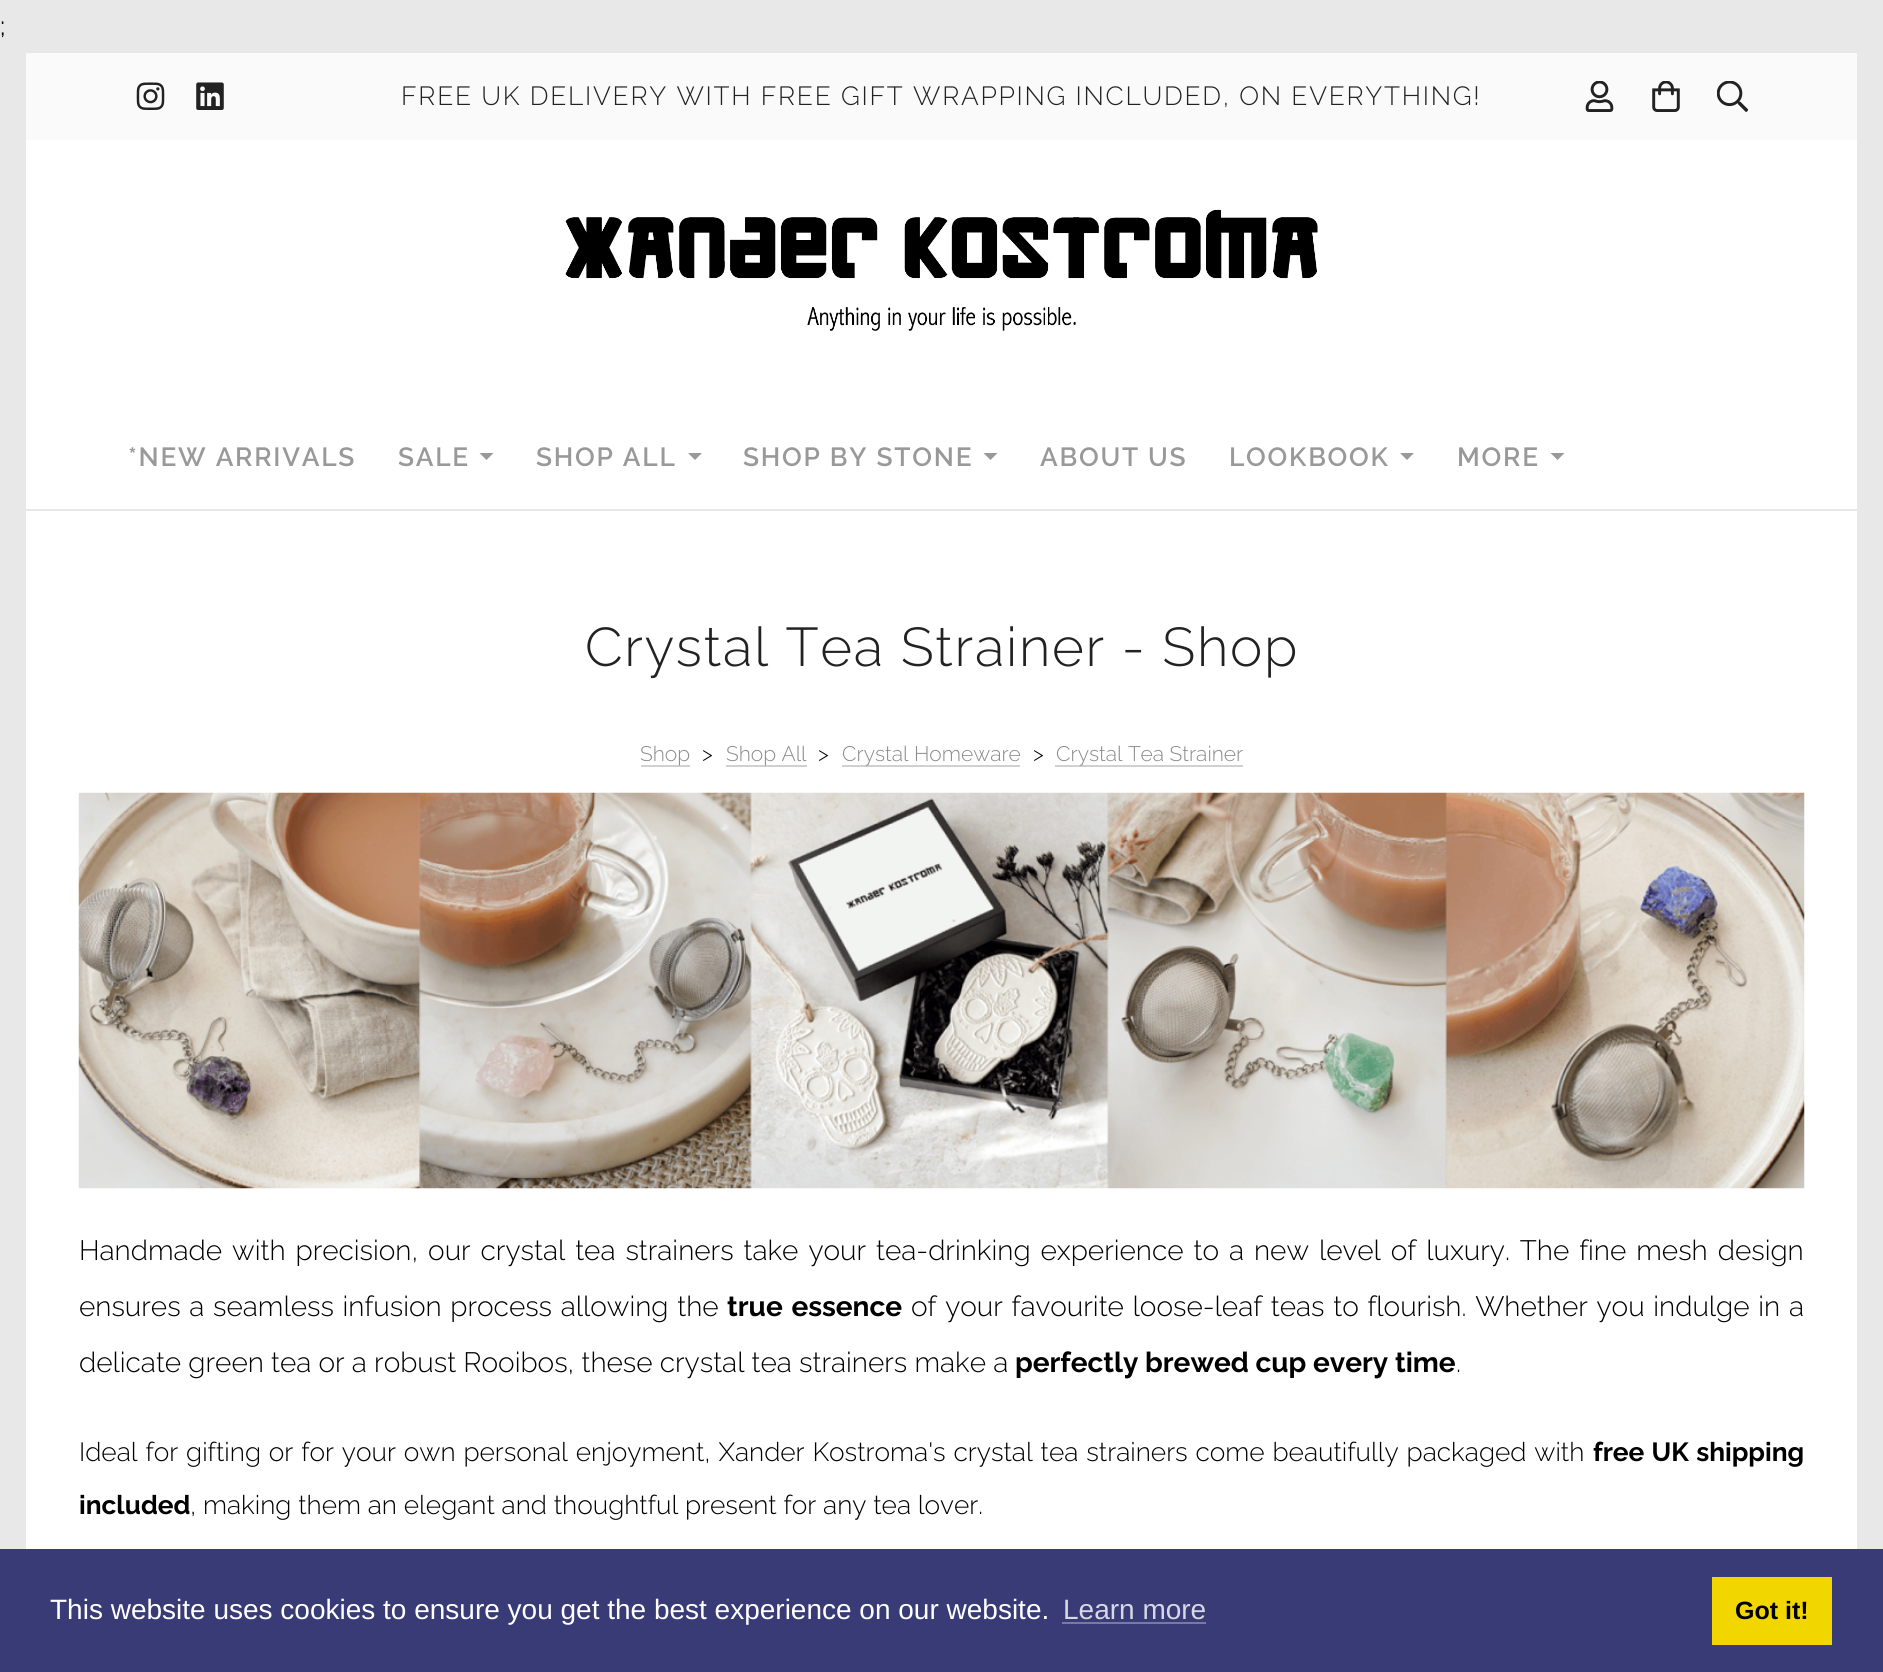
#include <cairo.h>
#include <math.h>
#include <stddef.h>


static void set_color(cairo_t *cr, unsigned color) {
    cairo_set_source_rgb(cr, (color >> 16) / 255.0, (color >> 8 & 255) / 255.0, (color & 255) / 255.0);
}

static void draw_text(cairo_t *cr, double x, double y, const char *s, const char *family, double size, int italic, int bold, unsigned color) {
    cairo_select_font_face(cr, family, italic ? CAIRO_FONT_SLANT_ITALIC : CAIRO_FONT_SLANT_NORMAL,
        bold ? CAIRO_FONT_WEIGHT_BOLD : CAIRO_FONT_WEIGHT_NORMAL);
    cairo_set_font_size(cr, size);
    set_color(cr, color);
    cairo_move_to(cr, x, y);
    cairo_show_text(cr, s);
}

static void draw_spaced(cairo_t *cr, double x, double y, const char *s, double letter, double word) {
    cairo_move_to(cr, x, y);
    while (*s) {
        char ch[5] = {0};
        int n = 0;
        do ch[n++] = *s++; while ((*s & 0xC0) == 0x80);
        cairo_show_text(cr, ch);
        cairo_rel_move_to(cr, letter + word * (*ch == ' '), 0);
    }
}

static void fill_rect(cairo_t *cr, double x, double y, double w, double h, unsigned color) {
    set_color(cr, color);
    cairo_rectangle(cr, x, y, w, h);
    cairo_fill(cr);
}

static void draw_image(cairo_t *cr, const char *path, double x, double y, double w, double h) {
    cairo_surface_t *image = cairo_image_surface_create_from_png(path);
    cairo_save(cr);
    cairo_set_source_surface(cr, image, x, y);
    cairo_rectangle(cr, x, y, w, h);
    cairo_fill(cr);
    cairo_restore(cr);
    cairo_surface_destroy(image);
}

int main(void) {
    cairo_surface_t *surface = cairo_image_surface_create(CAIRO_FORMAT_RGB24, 1883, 1672);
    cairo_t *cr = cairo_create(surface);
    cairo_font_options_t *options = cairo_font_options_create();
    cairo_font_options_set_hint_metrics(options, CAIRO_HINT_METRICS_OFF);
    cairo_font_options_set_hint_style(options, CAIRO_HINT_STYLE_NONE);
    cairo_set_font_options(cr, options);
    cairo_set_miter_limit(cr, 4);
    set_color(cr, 0xE8E8E8);
    cairo_paint(cr);
    draw_text(cr, 0, 35, ";", "Raleway", 26.25, 0, 0, 0x000000);
    fill_rect(cr, 26, 140, 1831, 369, 0xFFFFFF);
    fill_rect(cr, 26, 53, 1831, 87, 0xFAFAFA);
    draw_image(cr, "assets/img1.png", 136, 82, 29, 28);
    draw_image(cr, "assets/img2.png", 196, 82, 28, 28);
    cairo_select_font_face(cr, "Raleway Light", CAIRO_FONT_SLANT_NORMAL, CAIRO_FONT_WEIGHT_NORMAL);
    set_color(cr, 0x222222);
    draw_spaced(cr, 401, 105, "FREE UK DELIVERY WITH FREE GIFT WRAPPING INCLUDED, ON EVERYTHING!", 1.75, 0);
    draw_image(cr, "assets/img3.png", 1585, 81, 29, 31);
    draw_image(cr, "assets/img4.png", 1652, 81, 28, 31);
    draw_image(cr, "assets/img5.png", 1717, 81, 31, 31);
    draw_image(cr, "assets/img6.png", 565, 209, 753, 122);
    cairo_select_font_face(cr, "Raleway SemiBold", CAIRO_FONT_SLANT_NORMAL, CAIRO_FONT_WEIGHT_NORMAL);
    set_color(cr, 0x999999);
    draw_spaced(cr, 128, 466, "*NEW ARRIVALS", 1.75, 0);
    draw_spaced(cr, 398, 466, "SALE", 1.75, 0);
    cairo_new_path(cr);
    cairo_move_to(cr, 479.5, 453);
    cairo_line_to(cr, 493.5, 453);
    cairo_line_to(cr, 486.5, 460);
    cairo_close_path(cr);
    cairo_fill(cr);
    draw_spaced(cr, 536, 466, "SHOP ALL", 1.75, 0);
    cairo_new_path(cr);
    cairo_move_to(cr, 688, 453);
    cairo_line_to(cr, 702, 453);
    cairo_line_to(cr, 695, 460);
    cairo_close_path(cr);
    cairo_fill(cr);
    draw_spaced(cr, 743, 466, "SHOP BY STONE", 1.75, 0);
    cairo_new_path(cr);
    cairo_move_to(cr, 983.5, 453);
    cairo_line_to(cr, 997.5, 453);
    cairo_line_to(cr, 990.5, 460);
    cairo_close_path(cr);
    cairo_fill(cr);
    draw_spaced(cr, 1040, 466, "ABOUT US", 1.75, 0);
    draw_spaced(cr, 1229, 466, "LOOKBOOK", 1.75, 0);
    cairo_new_path(cr);
    cairo_move_to(cr, 1400, 453);
    cairo_line_to(cr, 1414, 453);
    cairo_line_to(cr, 1407, 460);
    cairo_close_path(cr);
    cairo_fill(cr);
    draw_spaced(cr, 1457, 466, "MORE", 1.75, 0);
    cairo_new_path(cr);
    cairo_move_to(cr, 1550.5, 453);
    cairo_line_to(cr, 1564.5, 453);
    cairo_line_to(cr, 1557.5, 460);
    cairo_close_path(cr);
    cairo_fill(cr);
    fill_rect(cr, 26, 511, 1831, 1038, 0xFFFFFF);
    cairo_select_font_face(cr, "Raleway Light", CAIRO_FONT_SLANT_NORMAL, CAIRO_FONT_WEIGHT_NORMAL);
    cairo_set_font_size(cr, 54.5);
    set_color(cr, 0x222222);
    draw_spaced(cr, 585, 666, "Crystal Tea Strainer - Shop", 1.75, 0);
    fill_rect(cr, 641, 765, 49, 2, 0xD0D0D0);
    draw_text(cr, 640, 761, "Shop", "Raleway Light", 21, 0, 0, 0x8A8A8A);
    draw_text(cr, 702, 761, ">", "Raleway Light", 21, 0, 0, 0x000000);
    fill_rect(cr, 726, 765, 81, 2, 0xD0D0D0);
    draw_text(cr, 726, 761, "Shop All", "Raleway Light", 21, 0, 0, 0x8A8A8A);
    draw_text(cr, 818, 761, ">", "Raleway Light", 21, 0, 0, 0x000000);
    fill_rect(cr, 842, 765, 178, 2, 0xD0D0D0);
    draw_text(cr, 842, 761, "Crystal Homeware", "Raleway Light", 21, 0, 0, 0x8A8A8A);
    draw_text(cr, 1033, 761, ">", "Raleway Light", 21, 0, 0, 0x000000);
    fill_rect(cr, 1055, 765, 188, 2, 0xD0D0D0);
    draw_text(cr, 1056, 761, "Crystal Tea Strainer", "Raleway Light", 21, 0, 0, 0x8A8A8A);
    draw_image(cr, "assets/img7.png", 78, 792, 1727, 397);
    cairo_set_font_size(cr, 28);
    set_color(cr, 0x000000);
    draw_spaced(cr, 79, 1260, "Handmade with precision, our crystal tea strainers take your tea-drinking experience to a new level of luxury. The fine mesh design", 0, 2.75);
    draw_spaced(cr, 79, 1316, "ensures a seamless infusion process allowing the", 0, 1.5);
    cairo_select_font_face(cr, "Raleway", CAIRO_FONT_SLANT_NORMAL, CAIRO_FONT_WEIGHT_BOLD);
    draw_spaced(cr, 727, 1316, "true essence", 0, 2);
    cairo_select_font_face(cr, "Raleway Light", CAIRO_FONT_SLANT_NORMAL, CAIRO_FONT_WEIGHT_NORMAL);
    draw_spaced(cr, 911, 1316, "of your favourite loose-leaf teas to flourish. Whether you indulge in a", 0, 1.5);
    draw_text(cr, 79, 1372, "delicate green tea or a robust Rooibos, these crystal tea strainers make a", "Raleway Light", 28, 0, 0, 0x000000);
    draw_text(cr, 1015, 1372, "perfectly brewed cup every time", "Raleway", 28, 0, 1, 0x000000);
    draw_text(cr, 1456, 1372, ".", "Raleway Light", 28, 0, 0, 0x000000);
    cairo_set_font_size(cr, 26.25);
    draw_spaced(cr, 79, 1461, "Ideal for gifting or for your own personal enjoyment, Xander Kostroma's crystal tea strainers come beautifully packaged with", 0, 1.1);
    cairo_select_font_face(cr, "Raleway", CAIRO_FONT_SLANT_NORMAL, CAIRO_FONT_WEIGHT_BOLD);
    draw_spaced(cr, 1593, 1461, "free UK shipping", 0, 1);
    draw_text(cr, 79, 1514, "included", "Raleway", 26.25, 0, 1, 0x000000);
    draw_text(cr, 190, 1514, ", making them an elegant and thoughtful present for any tea lover.", "Raleway Light", 26.25, 0, 0, 0x000000);
    fill_rect(cr, 0, 1549, 1883, 123, 0x383B75);
    draw_text(cr, 50, 1619, "This website uses cookies to ensure you get the best experience on our website.", "Liberation Sans", 28, 0, 0, 0xFFFFFF);
    draw_text(cr, 1063, 1619, "Learn more", "Liberation Sans", 28, 0, 0, 0xD7D8E3);
    fill_rect(cr, 1062, 1622, 144, 2, 0x787AA1);
    fill_rect(cr, 1712, 1577, 120, 68, 0xF1D600);
    draw_text(cr, 1735, 1619, "Got it!", "Liberation Sans", 25, 0, 1, 0x000000);
    cairo_surface_write_to_png(surface, "output.png");
    cairo_font_options_destroy(options);
    cairo_destroy(cr);
    cairo_surface_destroy(surface);
    return 0;
}
